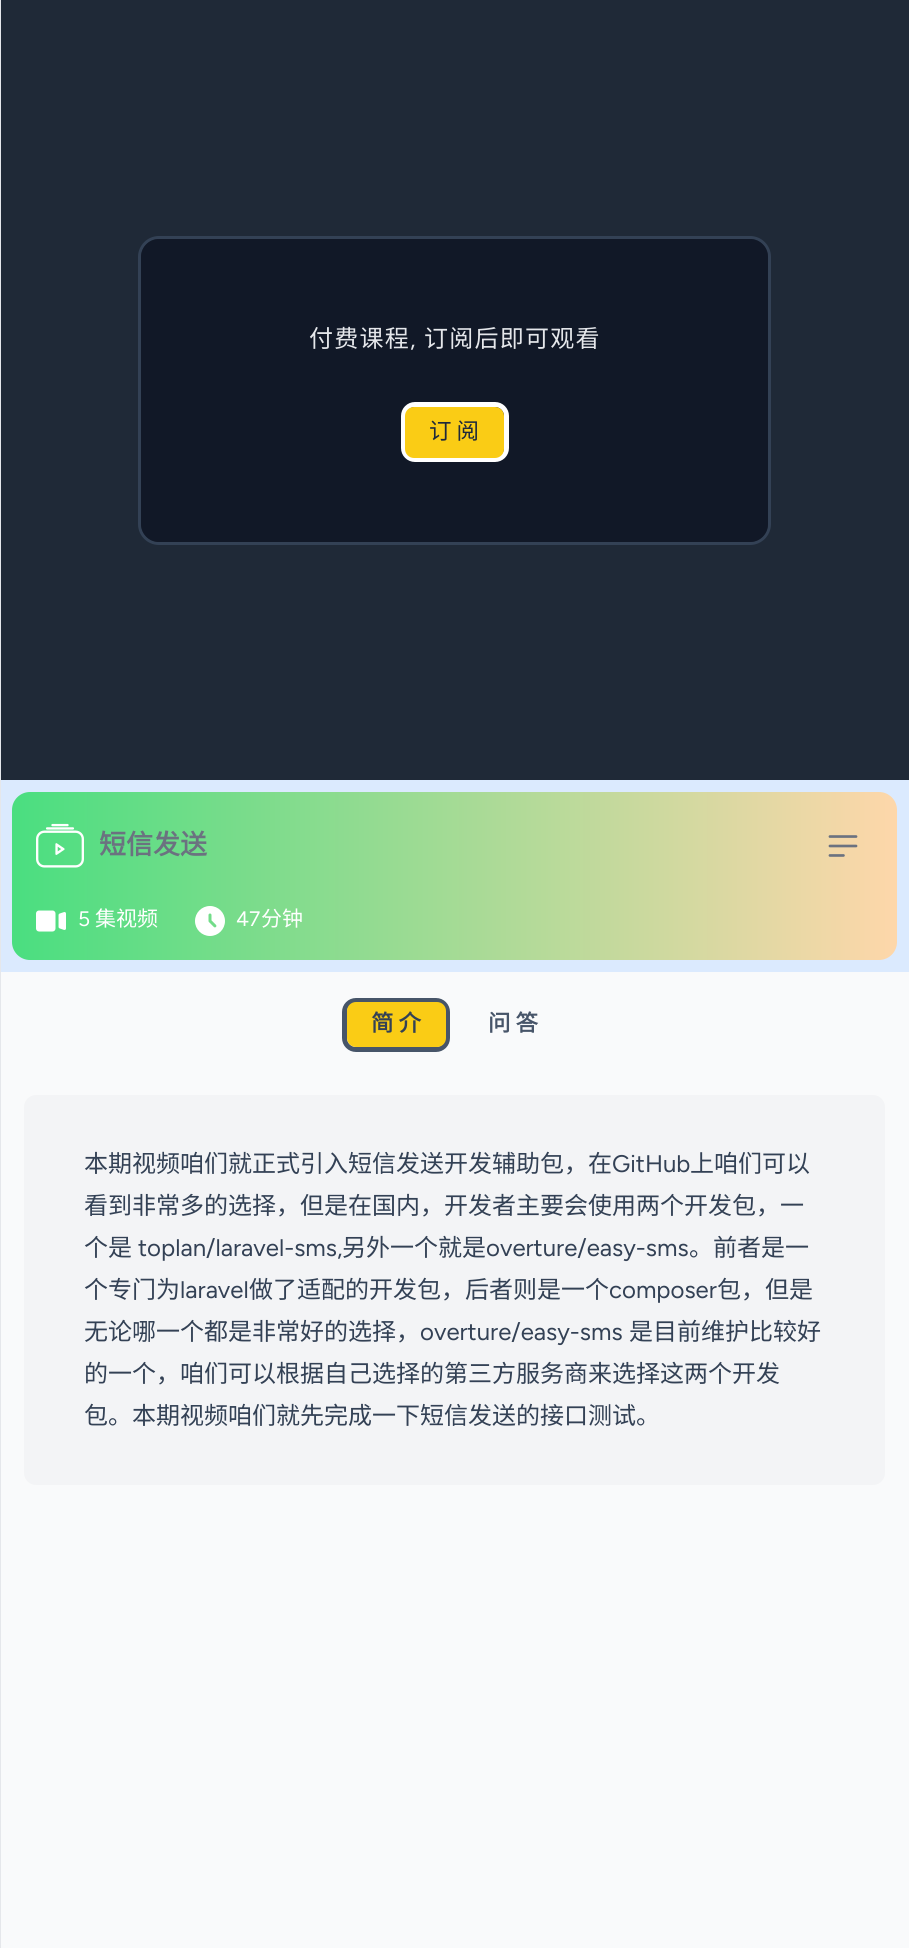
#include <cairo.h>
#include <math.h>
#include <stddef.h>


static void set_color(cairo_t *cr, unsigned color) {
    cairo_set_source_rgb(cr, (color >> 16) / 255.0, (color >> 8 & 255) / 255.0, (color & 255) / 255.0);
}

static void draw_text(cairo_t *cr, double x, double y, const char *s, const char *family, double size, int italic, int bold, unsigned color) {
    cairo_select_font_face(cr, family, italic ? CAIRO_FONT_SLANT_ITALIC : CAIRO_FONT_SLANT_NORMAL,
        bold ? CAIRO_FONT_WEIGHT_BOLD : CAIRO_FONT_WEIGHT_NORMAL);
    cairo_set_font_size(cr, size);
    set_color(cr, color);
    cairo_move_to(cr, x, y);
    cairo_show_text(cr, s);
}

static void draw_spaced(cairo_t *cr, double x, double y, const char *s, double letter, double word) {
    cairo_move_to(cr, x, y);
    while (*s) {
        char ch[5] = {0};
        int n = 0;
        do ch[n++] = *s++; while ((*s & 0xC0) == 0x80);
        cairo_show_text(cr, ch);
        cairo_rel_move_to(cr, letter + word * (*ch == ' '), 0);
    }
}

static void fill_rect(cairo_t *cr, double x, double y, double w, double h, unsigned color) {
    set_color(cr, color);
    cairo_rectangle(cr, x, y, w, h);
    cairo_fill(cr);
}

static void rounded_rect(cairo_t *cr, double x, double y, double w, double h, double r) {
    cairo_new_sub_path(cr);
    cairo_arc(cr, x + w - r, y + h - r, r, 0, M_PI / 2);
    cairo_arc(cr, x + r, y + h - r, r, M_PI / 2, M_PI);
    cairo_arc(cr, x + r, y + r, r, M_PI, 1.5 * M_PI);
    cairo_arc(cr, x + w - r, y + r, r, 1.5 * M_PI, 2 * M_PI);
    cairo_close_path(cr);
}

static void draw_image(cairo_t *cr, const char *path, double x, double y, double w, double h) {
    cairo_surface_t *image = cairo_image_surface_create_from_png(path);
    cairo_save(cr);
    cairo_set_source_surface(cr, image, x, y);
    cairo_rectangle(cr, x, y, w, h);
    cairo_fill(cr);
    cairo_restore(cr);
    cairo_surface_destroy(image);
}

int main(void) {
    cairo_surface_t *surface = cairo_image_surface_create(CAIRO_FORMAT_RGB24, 909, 1948);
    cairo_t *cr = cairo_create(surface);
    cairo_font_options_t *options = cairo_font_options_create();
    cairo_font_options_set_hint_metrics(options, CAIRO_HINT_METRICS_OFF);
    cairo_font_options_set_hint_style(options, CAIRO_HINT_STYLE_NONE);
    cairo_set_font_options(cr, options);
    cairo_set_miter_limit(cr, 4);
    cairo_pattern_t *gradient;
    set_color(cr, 0xF9FAFB);
    cairo_paint(cr);
    fill_rect(cr, 0, 0, 1, 1948, 0xE5E7EB);
    fill_rect(cr, 1, 0, 908, 780, 0x1F2937);
    rounded_rect(cr, 139.5, 237.5, 630, 306, 19.5);
    set_color(cr, 0x334155);
    cairo_set_line_width(cr, 3);
    cairo_stroke(cr);
    set_color(cr, 0x111827);
    rounded_rect(cr, 141, 239, 627, 303, 18);
    cairo_fill(cr);
    cairo_select_font_face(cr, "Noto Sans CJK SC", CAIRO_FONT_SLANT_NORMAL, CAIRO_FONT_WEIGHT_NORMAL);
    cairo_set_font_size(cr, 24);
    set_color(cr, 0xE5E7EB);
    draw_spaced(cr, 309, 347, "付费课程", 1.25, 0);
    cairo_select_font_face(cr, "Figtree", CAIRO_FONT_SLANT_NORMAL, CAIRO_FONT_WEIGHT_NORMAL);
    draw_spaced(cr, 410, 347, ",", 1.25, 0);
    cairo_select_font_face(cr, "Noto Sans CJK SC", CAIRO_FONT_SLANT_NORMAL, CAIRO_FONT_WEIGHT_NORMAL);
    draw_spaced(cr, 424, 347, "订阅后即可观看", 1.25, 0);
    rounded_rect(cr, 403.5, 404.5, 103, 55, 11.5);
    set_color(cr, 0xFFFFFF);
    cairo_set_line_width(cr, 5);
    cairo_stroke(cr);
    set_color(cr, 0xFACC15);
    rounded_rect(cr, 405, 407, 99, 51, 9);
    cairo_fill(cr);
    draw_text(cr, 429, 439, "订 阅", "Noto Sans CJK SC", 22.5, 0, 0, 0x1E293B);
    fill_rect(cr, 1, 780, 908, 192, 0xDBEAFE);
    gradient = cairo_pattern_create_linear(12, 876, 897, 876);
    cairo_pattern_add_color_stop_rgba(gradient, 0, 0.29, 0.871, 0.502, 1);
    cairo_pattern_add_color_stop_rgba(gradient, 1, 0.996, 0.843, 0.667, 1);
    cairo_set_source(cr, gradient);
    cairo_pattern_destroy(gradient);
    rounded_rect(cr, 12, 792, 885, 168, 18);
    cairo_fill(cr);
    draw_image(cr, "assets/img1.png", 36, 823, 48, 45);
    draw_text(cr, 99, 854, "短信发送", "Noto Sans CJK SC", 27, 0, 1, 0x6B7280);
    draw_image(cr, "assets/img2.png", 828, 835, 30, 22);
    draw_image(cr, "assets/img3.png", 36, 910, 30, 22);
    draw_text(cr, 78, 926, "5", "Figtree", 21, 0, 0, 0xFFFFFF);
    draw_text(cr, 95, 926, "集视频", "Noto Sans CJK SC", 21, 0, 0, 0xFFFFFF);
    draw_image(cr, "assets/img4.png", 195, 906, 30, 30);
    draw_text(cr, 236, 926, "47", "Figtree", 21, 0, 0, 0xFFFFFF);
    draw_text(cr, 261, 926, "分钟", "Noto Sans CJK SC", 21, 0, 0, 0xFFFFFF);
    rounded_rect(cr, 344.5, 1000.5, 103, 49, 11.5);
    set_color(cr, 0x475569);
    cairo_stroke(cr);
    set_color(cr, 0xFACC15);
    rounded_rect(cr, 347, 1002, 99, 45, 9);
    cairo_fill(cr);
    draw_text(cr, 371, 1031, "简 介", "Noto Sans CJK SC", 22.5, 0, 1, 0x334155);
    draw_text(cr, 488, 1031, "问 答", "Noto Sans CJK SC", 22.5, 0, 1, 0x475569);
    set_color(cr, 0xF3F4F6);
    rounded_rect(cr, 24, 1095, 861, 390, 12);
    cairo_fill(cr);
    draw_text(cr, 84, 1172, "本期视频咱们就正式引入短信发送开发辅助包，在", "Noto Sans CJK SC", 24, 0, 0, 0x334155);
    draw_text(cr, 612, 1172, "GitHub", "Figtree", 24, 0, 0, 0x334155);
    draw_text(cr, 690, 1172, "上咱们可以", "Noto Sans CJK SC", 24, 0, 0, 0x334155);
    draw_text(cr, 84, 1214, "看到非常多的选择，但是在国内，开发者主要会使用两个开发包，一", "Noto Sans CJK SC", 24, 0, 0, 0x334155);
    draw_text(cr, 84, 1256, "个是", "Noto Sans CJK SC", 24, 0, 0, 0x334155);
    draw_text(cr, 138, 1256, "toplan/laravel-sms,", "Figtree", 24, 0, 0, 0x334155);
    draw_text(cr, 342, 1256, "另外一个就是", "Noto Sans CJK SC", 24, 0, 0, 0x334155);
    draw_text(cr, 486, 1256, "overture/easy-sms", "Figtree", 24, 0, 0, 0x334155);
    draw_text(cr, 689, 1256, "。前者是一", "Noto Sans CJK SC", 24, 0, 0, 0x334155);
    draw_text(cr, 84, 1298, "个专门为", "Noto Sans CJK SC", 24, 0, 0, 0x334155);
    draw_text(cr, 180, 1298, "laravel", "Figtree", 24, 0, 0, 0x334155);
    draw_text(cr, 249, 1298, "做了适配的开发包，后者则是一个", "Noto Sans CJK SC", 24, 0, 0, 0x334155);
    draw_text(cr, 609, 1298, "composer", "Figtree", 24, 0, 0, 0x334155);
    draw_text(cr, 717, 1298, "包，但是", "Noto Sans CJK SC", 24, 0, 0, 0x334155);
    draw_text(cr, 84, 1340, "无论哪一个都是非常好的选择，", "Noto Sans CJK SC", 24, 0, 0, 0x334155);
    draw_text(cr, 420, 1340, "overture/easy-sms", "Figtree", 24, 0, 0, 0x334155);
    draw_text(cr, 629, 1340, "是目前维护比较好", "Noto Sans CJK SC", 24, 0, 0, 0x334155);
    draw_text(cr, 84, 1382, "的一个，咱们可以根据自己选择的第三方服务商来选择这两个开发", "Noto Sans CJK SC", 24, 0, 0, 0x334155);
    draw_text(cr, 84, 1424, "包。本期视频咱们就先完成一下短信发送的接口测试。", "Noto Sans CJK SC", 24, 0, 0, 0x334155);
    cairo_surface_write_to_png(surface, "output.png");
    cairo_font_options_destroy(options);
    cairo_destroy(cr);
    cairo_surface_destroy(surface);
    return 0;
}
